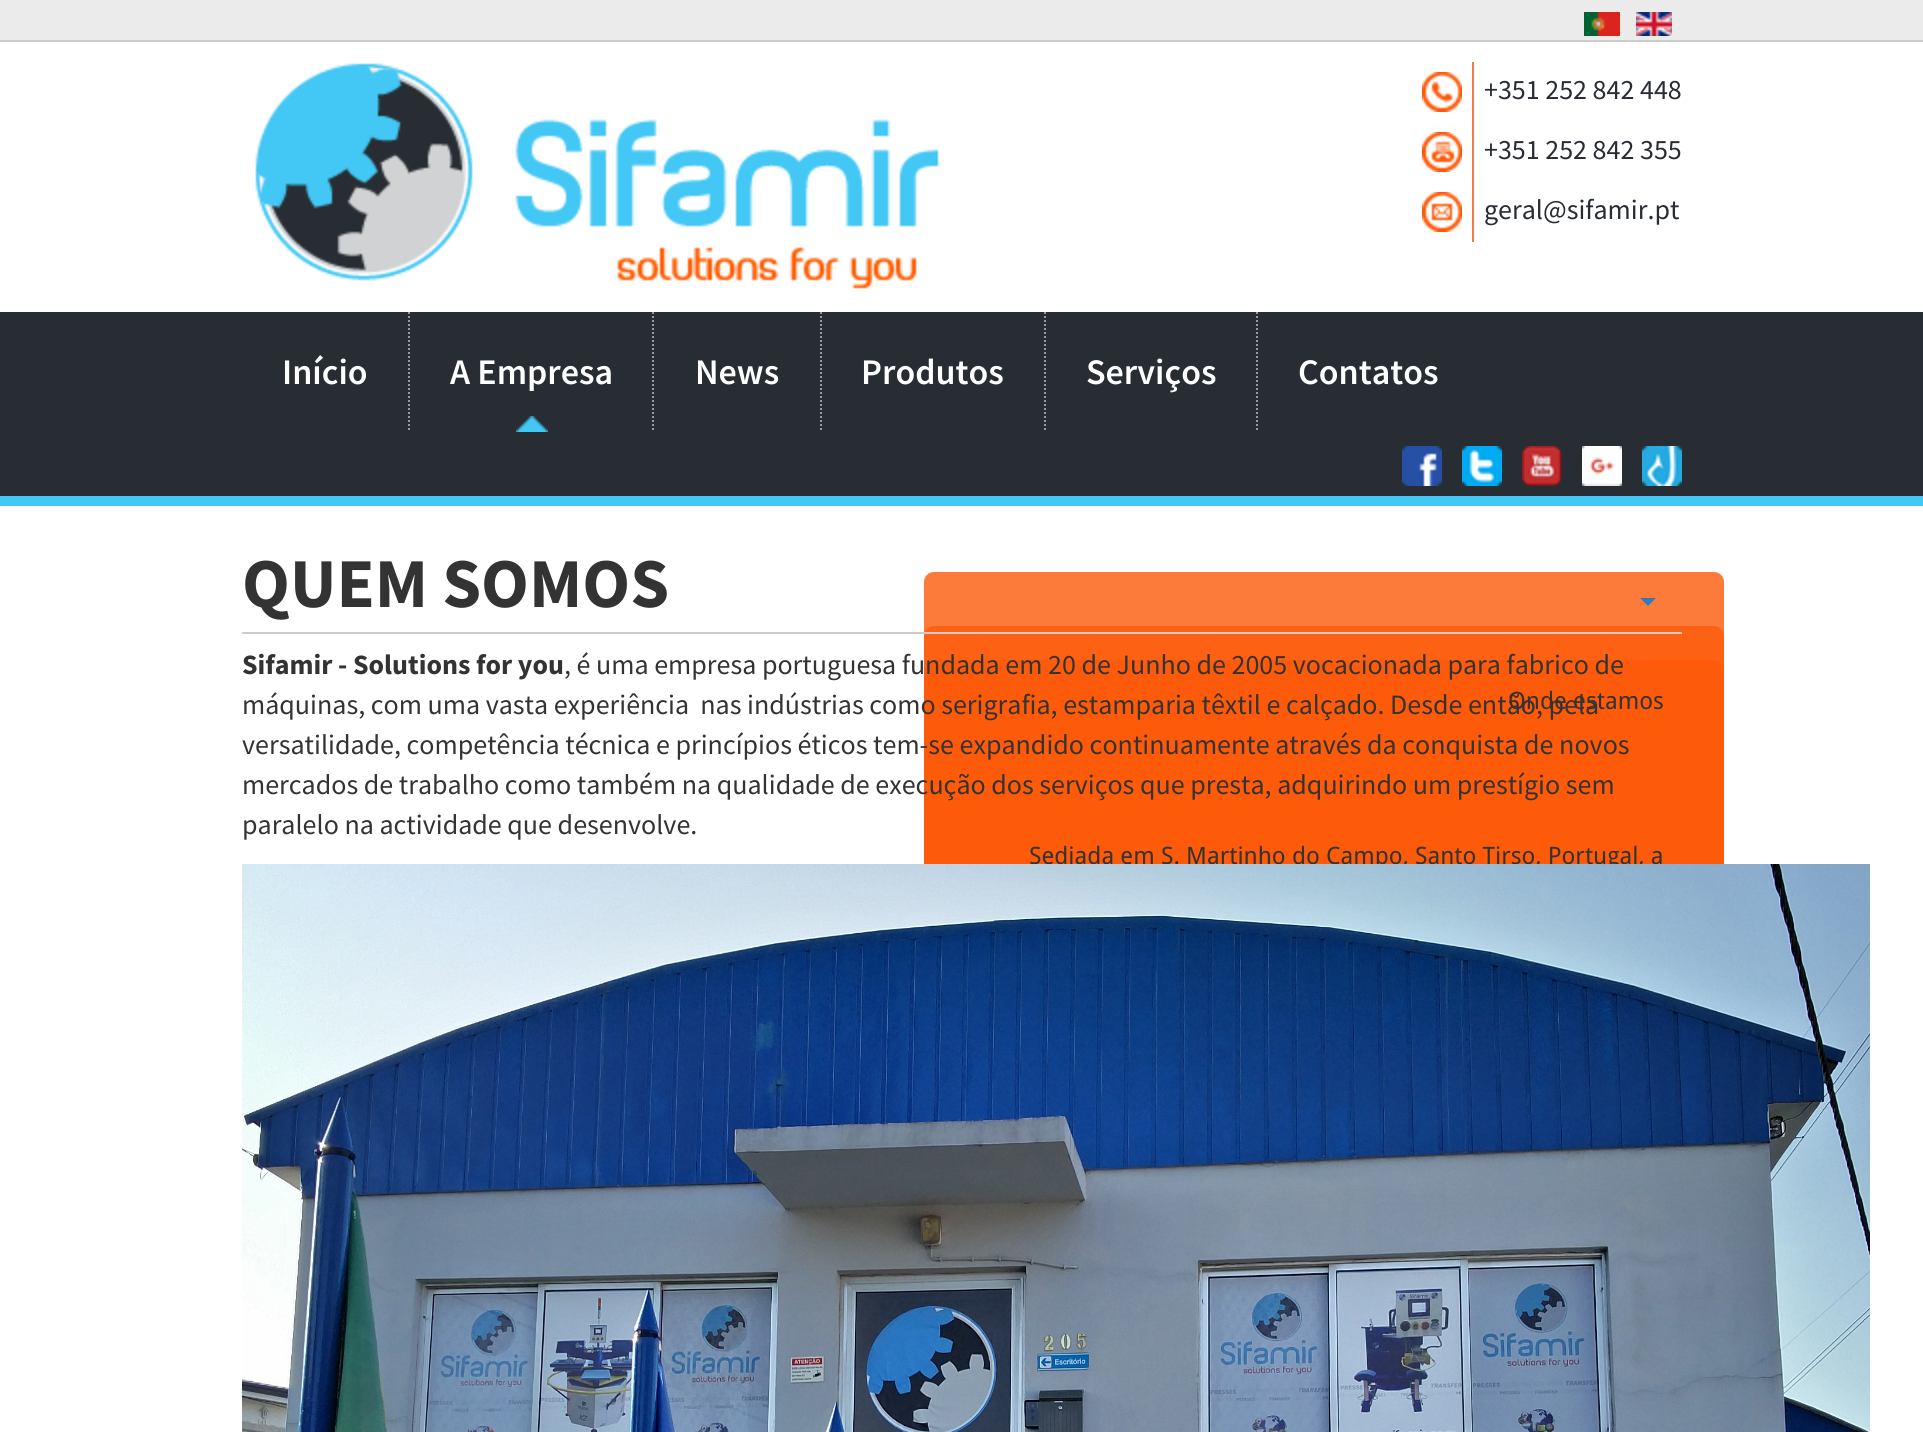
#include <cairo.h>
#include <math.h>
#include <stddef.h>


static void set_color(cairo_t *cr, unsigned color) {
    cairo_set_source_rgb(cr, (color >> 16) / 255.0, (color >> 8 & 255) / 255.0, (color & 255) / 255.0);
}

static void draw_text(cairo_t *cr, double x, double y, const char *s, const char *family, double size, int italic, int bold, unsigned color) {
    cairo_select_font_face(cr, family, italic ? CAIRO_FONT_SLANT_ITALIC : CAIRO_FONT_SLANT_NORMAL,
        bold ? CAIRO_FONT_WEIGHT_BOLD : CAIRO_FONT_WEIGHT_NORMAL);
    cairo_set_font_size(cr, size);
    set_color(cr, color);
    cairo_move_to(cr, x, y);
    cairo_show_text(cr, s);
}

static void fill_rect(cairo_t *cr, double x, double y, double w, double h, unsigned color) {
    set_color(cr, color);
    cairo_rectangle(cr, x, y, w, h);
    cairo_fill(cr);
}

static void rounded_rect(cairo_t *cr, double x, double y, double w, double h, double r) {
    cairo_new_sub_path(cr);
    cairo_arc(cr, x + w - r, y + h - r, r, 0, M_PI / 2);
    cairo_arc(cr, x + r, y + h - r, r, M_PI / 2, M_PI);
    cairo_arc(cr, x + r, y + r, r, M_PI, 1.5 * M_PI);
    cairo_arc(cr, x + w - r, y + r, r, 1.5 * M_PI, 2 * M_PI);
    cairo_close_path(cr);
}

static void draw_image(cairo_t *cr, const char *path, double x, double y, double w, double h) {
    cairo_surface_t *image = cairo_image_surface_create_from_png(path);
    cairo_save(cr);
    cairo_set_source_surface(cr, image, x, y);
    cairo_rectangle(cr, x, y, w, h);
    cairo_fill(cr);
    cairo_restore(cr);
    cairo_surface_destroy(image);
}

int main(void) {
    cairo_surface_t *surface = cairo_image_surface_create(CAIRO_FORMAT_RGB24, 1923, 1432);
    cairo_t *cr = cairo_create(surface);
    cairo_font_options_t *options = cairo_font_options_create();
    cairo_font_options_set_hint_metrics(options, CAIRO_HINT_METRICS_OFF);
    cairo_font_options_set_hint_style(options, CAIRO_HINT_STYLE_NONE);
    cairo_set_font_options(cr, options);
    cairo_set_miter_limit(cr, 4);
    set_color(cr, 0xFFFFFF);
    cairo_paint(cr);
    fill_rect(cr, 0, 312, 1923, 184, 0x272D33);
    fill_rect(cr, 0, 496, 1923, 10, 0x43C7F4);
    fill_rect(cr, 0, 0, 1923, 40, 0xEBEBEB);
    fill_rect(cr, 0, 40, 1923, 2, 0xCCCCCC);
    draw_image(cr, "assets/img1.png", 1584, 12, 36, 24);
    draw_image(cr, "assets/img2.png", 1636, 12, 36, 24);
    draw_image(cr, "assets/img3.png", 255, 63, 684, 226);
    draw_image(cr, "assets/img4.png", 1422, 72, 40, 40);
    fill_rect(cr, 1472, 62, 2, 180, 0xF3794A);
    draw_text(cr, 1484, 99, "+351 252 842 448", "Source Sans Pro", 28, 0, 0, 0x272D33);
    draw_image(cr, "assets/img5.png", 1422, 132, 40, 40);
    draw_text(cr, 1484, 159, "+351 252 842 355", "Source Sans Pro", 28, 0, 0, 0x272D33);
    draw_image(cr, "assets/img6.png", 1422, 192, 40, 40);
    draw_text(cr, 1484, 219, "geral@sifamir.pt", "Source Sans Pro", 28, 0, 0, 0x272D33);
    cairo_new_path(cr);
    cairo_move_to(cr, 409, 312);
    cairo_line_to(cr, 409, 432);
    set_color(cr, 0x999999);
    cairo_set_dash(cr, (double[]){2, 2}, 2, 0);
    cairo_stroke(cr);
    draw_text(cr, 282, 384, "Início", "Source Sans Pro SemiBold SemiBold", 36, 0, 0, 0xFFFFFF);
    draw_image(cr, "assets/img7.png", 516, 416, 32, 16);
    cairo_new_path(cr);
    cairo_move_to(cr, 653, 312);
    cairo_line_to(cr, 653, 432);
    set_color(cr, 0x999999);
    cairo_stroke(cr);
    draw_text(cr, 450, 384, "A Empresa", "Source Sans Pro SemiBold SemiBold", 36, 0, 0, 0xFFFFFF);
    cairo_new_path(cr);
    cairo_move_to(cr, 821, 312);
    cairo_line_to(cr, 821, 432);
    set_color(cr, 0x999999);
    cairo_stroke(cr);
    draw_text(cr, 695, 384, "News", "Source Sans Pro SemiBold SemiBold", 36, 0, 0, 0xFFFFFF);
    cairo_new_path(cr);
    cairo_move_to(cr, 1045, 312);
    cairo_line_to(cr, 1045, 432);
    set_color(cr, 0x999999);
    cairo_stroke(cr);
    draw_text(cr, 861, 384, "Produtos", "Source Sans Pro SemiBold SemiBold", 36, 0, 0, 0xFFFFFF);
    cairo_new_path(cr);
    cairo_move_to(cr, 1257, 312);
    cairo_line_to(cr, 1257, 432);
    set_color(cr, 0x999999);
    cairo_stroke(cr);
    draw_text(cr, 1086, 384, "Serviços", "Source Sans Pro SemiBold SemiBold", 36, 0, 0, 0xFFFFFF);
    draw_text(cr, 1298, 384, "Contatos", "Source Sans Pro SemiBold SemiBold", 36, 0, 0, 0xFFFFFF);
    draw_image(cr, "assets/img8.png", 1402, 446, 40, 40);
    draw_image(cr, "assets/img9.png", 1462, 446, 40, 40);
    draw_image(cr, "assets/img10.png", 1522, 446, 40, 40);
    draw_image(cr, "assets/img11.png", 1582, 446, 40, 40);
    draw_image(cr, "assets/img12.png", 1642, 446, 40, 40);
    set_color(cr, 0xFD7B3B);
    rounded_rect(cr, 924, 694, 800, 154, 10);
    cairo_fill(cr);
    cairo_set_source_rgba(cr, 0.988, 0.353, 0.039, 0.8);
    rounded_rect(cr, 924, 572, 800, 154, 10);
    cairo_fill(cr);
    set_color(cr, 0xFD7B3B);
    rounded_rect(cr, 924, 848, 800, 154, 10);
    cairo_fill(cr);
    cairo_set_source_rgba(cr, 0.988, 0.353, 0.039, 0.8);
    rounded_rect(cr, 924, 726, 800, 276, 10);
    cairo_fill(cr);
    rounded_rect(cr, 924, 660, 800, 154, 10);
    cairo_fill(cr);
    rounded_rect(cr, 924, 626, 800, 154, 10);
    cairo_fill(cr);
    fill_rect(cr, 242, 632, 1440, 2, 0xCCCCCC);
    draw_text(cr, 242, 607, "QUEM SOMOS", "Source Sans Pro", 70, 0, 1, 0x333333);
    set_color(cr, 0x337AB7);
    cairo_new_path(cr);
    cairo_move_to(cr, 1640, 598);
    cairo_line_to(cr, 1656, 598);
    cairo_line_to(cr, 1648, 606);
    cairo_close_path(cr);
    cairo_fill(cr);
    draw_text(cr, 242, 674, "Sifamir - Solutions for you", "Source Sans Pro", 28, 0, 1, 0x333333);
    draw_text(cr, 564, 674, ", é uma empresa portuguesa fundada em 20 de Junho de 2005 vocacionada para fabrico de", "Source Sans Pro", 28, 0, 0, 0x333333);
    draw_text(cr, 1508, 709, "Onde estamos", "Droid Sans", 24, 0, 0, 0x333333);
    draw_text(cr, 242, 714, "máquinas, com uma vasta experiência  nas indústrias como serigrafia, estamparia têxtil e calçado. Desde então, pela", "Source Sans Pro", 28, 0, 0, 0x333333);
    draw_text(cr, 242, 754, "versatilidade, competência técnica e princípios éticos tem-se expandido continuamente através da conquista de novos", "Source Sans Pro", 28, 0, 0, 0x333333);
    cairo_set_source_rgba(cr, 0.988, 0.353, 0.039, 0.8);
    rounded_rect(cr, 924, 814, 800, 188, 10);
    cairo_fill(cr);
    rounded_rect(cr, 924, 780, 800, 222, 10);
    cairo_fill(cr);
    draw_text(cr, 242, 794, "mercados de trabalho como também na qualidade de execução dos serviços que presta, adquirindo um prestígio sem", "Source Sans Pro", 28, 0, 0, 0x333333);
    draw_text(cr, 242, 834, "paralelo na actividade que desenvolve.", "Source Sans Pro", 28, 0, 0, 0x333333);
    draw_text(cr, 1029, 864, "Sediada em S. Martinho do Campo, Santo Tirso, Portugal, a", "Droid Sans", 24, 0, 0, 0x333333);
    draw_image(cr, "assets/img13.png", 242, 864, 1628, 568);
    cairo_surface_write_to_png(surface, "output.png");
    cairo_font_options_destroy(options);
    cairo_destroy(cr);
    cairo_surface_destroy(surface);
    return 0;
}
